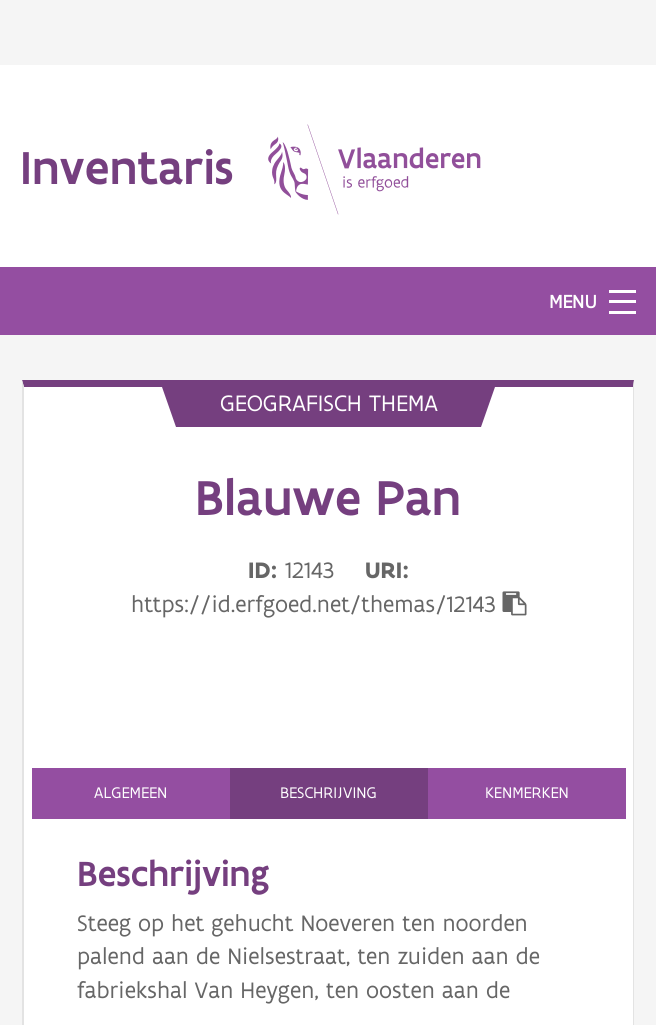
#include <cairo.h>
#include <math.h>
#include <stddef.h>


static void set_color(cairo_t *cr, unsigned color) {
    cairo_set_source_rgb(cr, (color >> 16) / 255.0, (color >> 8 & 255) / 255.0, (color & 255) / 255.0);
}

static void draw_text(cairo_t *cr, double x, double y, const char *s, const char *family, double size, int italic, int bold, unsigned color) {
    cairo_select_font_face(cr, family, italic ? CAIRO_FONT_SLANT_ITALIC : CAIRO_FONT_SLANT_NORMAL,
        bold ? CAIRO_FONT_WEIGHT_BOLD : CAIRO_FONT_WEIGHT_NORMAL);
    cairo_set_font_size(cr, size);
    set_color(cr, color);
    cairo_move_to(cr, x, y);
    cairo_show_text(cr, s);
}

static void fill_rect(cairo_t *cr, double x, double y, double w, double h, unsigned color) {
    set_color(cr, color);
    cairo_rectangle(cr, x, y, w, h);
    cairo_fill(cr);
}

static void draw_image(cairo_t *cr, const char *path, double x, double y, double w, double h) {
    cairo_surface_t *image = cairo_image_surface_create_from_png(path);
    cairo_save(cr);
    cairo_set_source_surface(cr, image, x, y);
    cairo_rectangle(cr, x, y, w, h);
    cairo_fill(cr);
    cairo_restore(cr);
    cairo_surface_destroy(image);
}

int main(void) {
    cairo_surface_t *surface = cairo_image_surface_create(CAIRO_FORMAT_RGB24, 656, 1025);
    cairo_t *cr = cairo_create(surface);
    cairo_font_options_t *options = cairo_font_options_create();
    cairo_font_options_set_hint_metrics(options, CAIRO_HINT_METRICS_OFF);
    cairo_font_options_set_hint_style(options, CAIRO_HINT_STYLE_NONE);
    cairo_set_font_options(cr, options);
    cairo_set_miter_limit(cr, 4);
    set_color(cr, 0xF5F5F5);
    cairo_paint(cr);
    fill_rect(cr, 0, 65, 656, 202, 0xFFFFFF);
    draw_text(cr, 20, 184, "Inventaris", "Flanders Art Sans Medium", 49.5, 0, 0, 0x753F7F);
    draw_image(cr, "assets/img1.png", 268, 124, 213, 91);
    fill_rect(cr, 0, 267, 656, 68, 0x944EA1);
    draw_text(cr, 549, 308, "MENU", "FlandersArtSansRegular", 19.5, 0, 1, 0xFFFFFF);
    fill_rect(cr, 609, 311, 27, 3, 0xFFFFFF);
    fill_rect(cr, 609, 300, 27, 3, 0xFFFFFF);
    fill_rect(cr, 609, 290, 27, 3, 0xFFFFFF);
    fill_rect(cr, 24, 387, 609, 638, 0xFFFFFF);
    set_color(cr, 0x753F7F);
    cairo_new_path(cr);
    cairo_move_to(cr, 22, 380);
    cairo_line_to(cr, 634, 380);
    cairo_line_to(cr, 633, 387);
    cairo_line_to(cr, 24, 387);
    cairo_close_path(cr);
    cairo_fill(cr);
    set_color(cr, 0xE3E3E3);
    cairo_new_path(cr);
    cairo_move_to(cr, 634, 380);
    cairo_line_to(cr, 634, 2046);
    cairo_line_to(cr, 633, 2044);
    cairo_line_to(cr, 633, 387);
    cairo_close_path(cr);
    cairo_fill(cr);
    cairo_new_path(cr);
    cairo_move_to(cr, 22, 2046);
    cairo_line_to(cr, 22, 380);
    cairo_line_to(cr, 24, 387);
    cairo_line_to(cr, 24, 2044);
    cairo_close_path(cr);
    cairo_fill(cr);
    set_color(cr, 0x753F7F);
    cairo_new_path(cr);
    cairo_move_to(cr, 162, 387);
    cairo_line_to(cr, 428, 387);
    cairo_line_to(cr, 442, 427);
    cairo_line_to(cr, 176, 427);
    cairo_close_path(cr);
    cairo_fill(cr);
    cairo_new_path(cr);
    cairo_move_to(cr, 229, 387);
    cairo_line_to(cr, 495, 387);
    cairo_line_to(cr, 481, 427);
    cairo_line_to(cr, 215, 427);
    cairo_close_path(cr);
    cairo_fill(cr);
    draw_text(cr, 220, 411, "GEOGRAFISCH THEMA", "FlandersArtSansRegular", 24, 0, 0, 0xFFFFFF);
    draw_text(cr, 195, 515, "Blauwe Pan", "Flanders Art Sans Medium", 52.5, 0, 0, 0x753F7F);
    draw_text(cr, 248, 578, "ID:", "Flanders Art Sans", 24, 0, 1, 0x666666);
    draw_text(cr, 285, 578, "12143", "FlandersArtSansRegular", 24, 0, 0, 0x666666);
    draw_text(cr, 365, 578, "URI:", "Flanders Art Sans", 24, 0, 1, 0x666666);
    draw_text(cr, 131, 612, "https://id.erfgoed.net/themas/12143", "FlandersArtSansRegular", 24, 0, 0, 0x666666);
    draw_image(cr, "assets/img2.png", 502, 591, 25, 25);
    fill_rect(cr, 32, 768, 198, 51, 0x944EA1);
    draw_text(cr, 94, 798, "ALGEMEEN", "FlandersArtSansRegular", 16.5, 0, 0, 0xFFFFFF);
    fill_rect(cr, 230, 768, 198, 51, 0x753F7F);
    draw_text(cr, 280, 798, "BESCHRIJVING", "FlandersArtSansRegular", 16.5, 0, 0, 0xFFFFFF);
    fill_rect(cr, 428, 768, 198, 51, 0x944EA1);
    draw_text(cr, 485, 798, "KENMERKEN", "FlandersArtSansRegular", 16.5, 0, 0, 0xFFFFFF);
    draw_text(cr, 77, 886, "Beschrijving", "Flanders Art Sans Medium", 37.5, 0, 0, 0x753F7F);
    draw_text(cr, 77, 931, "Steeg op het gehucht Noeveren ten noorden", "FlandersArtSansRegular", 24, 0, 0, 0x666666);
    draw_text(cr, 77, 964, "palend aan de Nielsestraat, ten zuiden aan de", "FlandersArtSansRegular", 24, 0, 0, 0x666666);
    draw_text(cr, 77, 998, "fabriekshal Van Heygen, ten oosten aan de", "FlandersArtSansRegular", 24, 0, 0, 0x666666);
    cairo_surface_write_to_png(surface, "output.png");
    cairo_font_options_destroy(options);
    cairo_destroy(cr);
    cairo_surface_destroy(surface);
    return 0;
}
